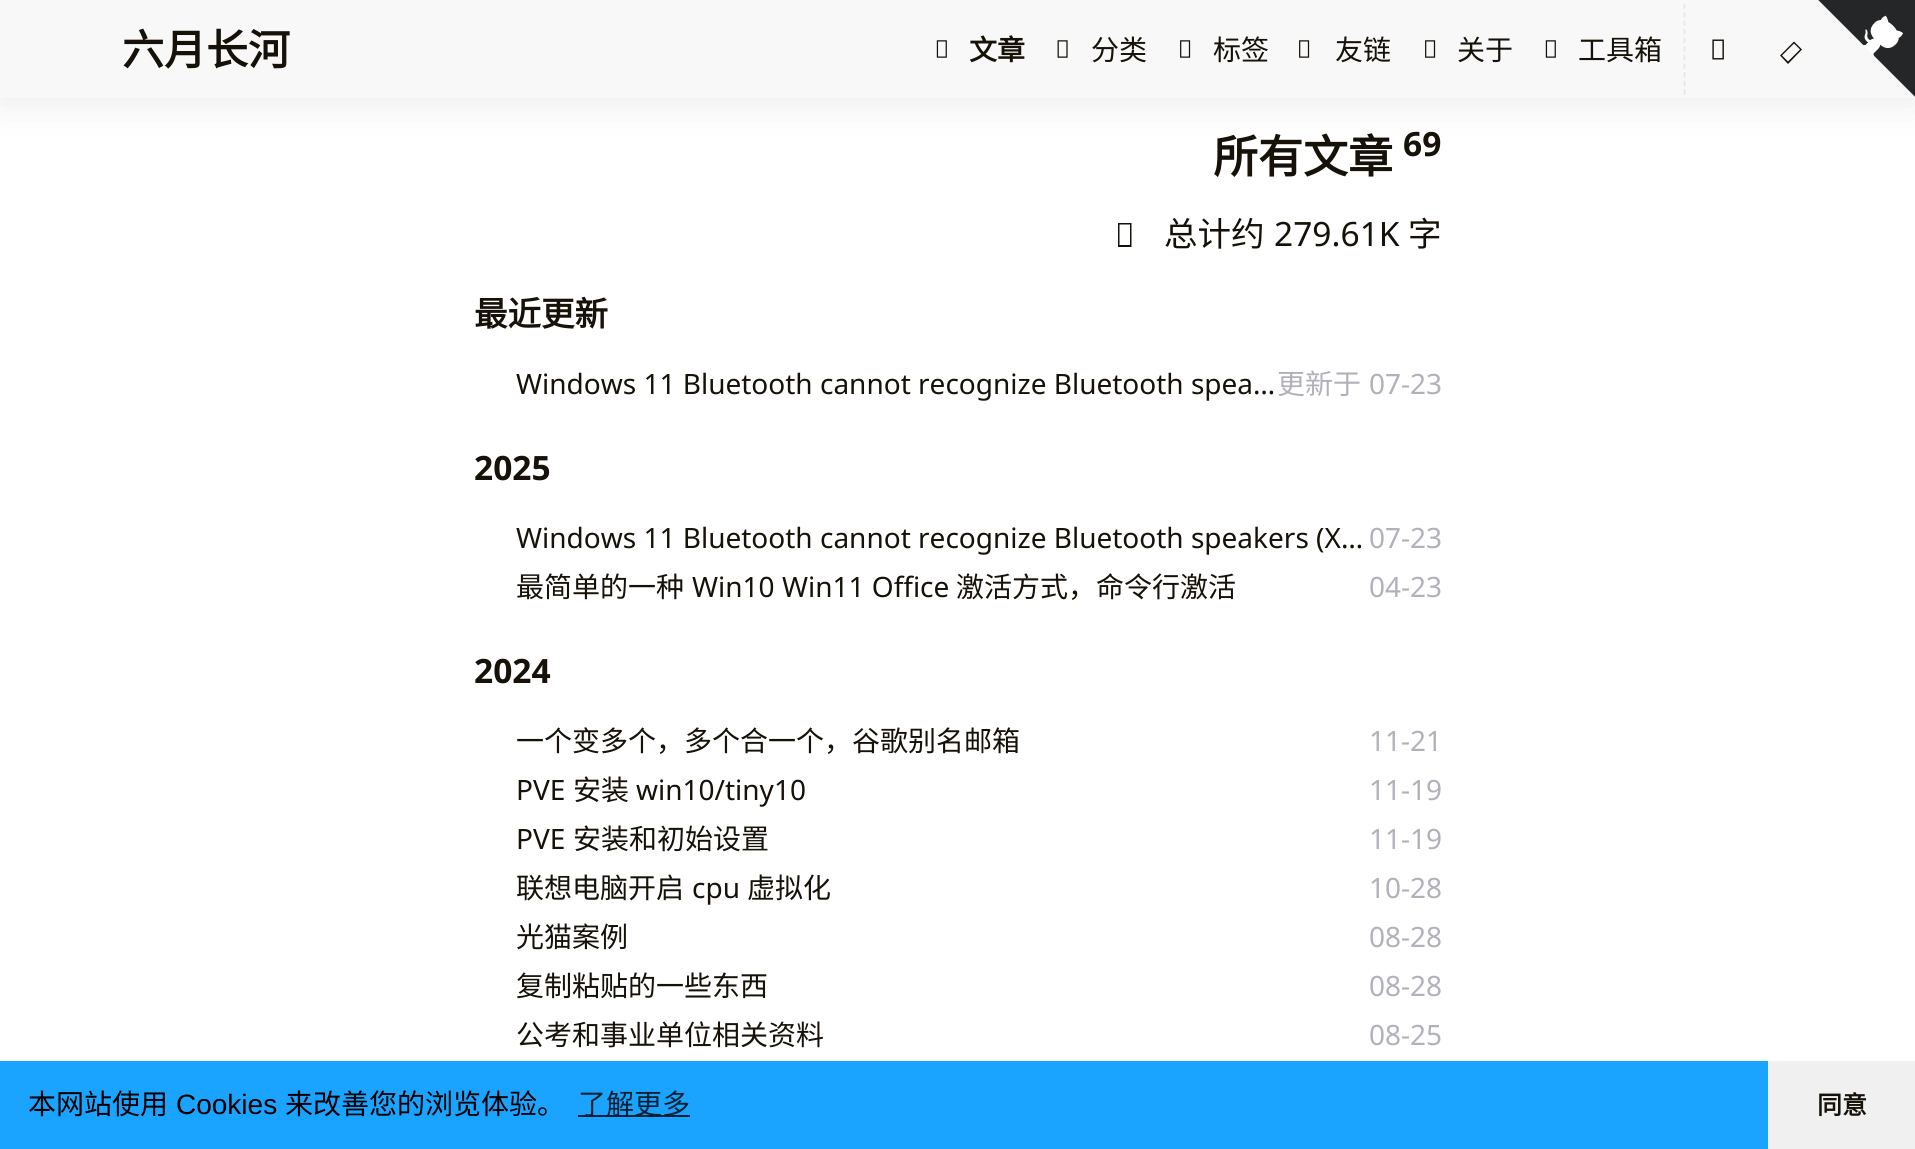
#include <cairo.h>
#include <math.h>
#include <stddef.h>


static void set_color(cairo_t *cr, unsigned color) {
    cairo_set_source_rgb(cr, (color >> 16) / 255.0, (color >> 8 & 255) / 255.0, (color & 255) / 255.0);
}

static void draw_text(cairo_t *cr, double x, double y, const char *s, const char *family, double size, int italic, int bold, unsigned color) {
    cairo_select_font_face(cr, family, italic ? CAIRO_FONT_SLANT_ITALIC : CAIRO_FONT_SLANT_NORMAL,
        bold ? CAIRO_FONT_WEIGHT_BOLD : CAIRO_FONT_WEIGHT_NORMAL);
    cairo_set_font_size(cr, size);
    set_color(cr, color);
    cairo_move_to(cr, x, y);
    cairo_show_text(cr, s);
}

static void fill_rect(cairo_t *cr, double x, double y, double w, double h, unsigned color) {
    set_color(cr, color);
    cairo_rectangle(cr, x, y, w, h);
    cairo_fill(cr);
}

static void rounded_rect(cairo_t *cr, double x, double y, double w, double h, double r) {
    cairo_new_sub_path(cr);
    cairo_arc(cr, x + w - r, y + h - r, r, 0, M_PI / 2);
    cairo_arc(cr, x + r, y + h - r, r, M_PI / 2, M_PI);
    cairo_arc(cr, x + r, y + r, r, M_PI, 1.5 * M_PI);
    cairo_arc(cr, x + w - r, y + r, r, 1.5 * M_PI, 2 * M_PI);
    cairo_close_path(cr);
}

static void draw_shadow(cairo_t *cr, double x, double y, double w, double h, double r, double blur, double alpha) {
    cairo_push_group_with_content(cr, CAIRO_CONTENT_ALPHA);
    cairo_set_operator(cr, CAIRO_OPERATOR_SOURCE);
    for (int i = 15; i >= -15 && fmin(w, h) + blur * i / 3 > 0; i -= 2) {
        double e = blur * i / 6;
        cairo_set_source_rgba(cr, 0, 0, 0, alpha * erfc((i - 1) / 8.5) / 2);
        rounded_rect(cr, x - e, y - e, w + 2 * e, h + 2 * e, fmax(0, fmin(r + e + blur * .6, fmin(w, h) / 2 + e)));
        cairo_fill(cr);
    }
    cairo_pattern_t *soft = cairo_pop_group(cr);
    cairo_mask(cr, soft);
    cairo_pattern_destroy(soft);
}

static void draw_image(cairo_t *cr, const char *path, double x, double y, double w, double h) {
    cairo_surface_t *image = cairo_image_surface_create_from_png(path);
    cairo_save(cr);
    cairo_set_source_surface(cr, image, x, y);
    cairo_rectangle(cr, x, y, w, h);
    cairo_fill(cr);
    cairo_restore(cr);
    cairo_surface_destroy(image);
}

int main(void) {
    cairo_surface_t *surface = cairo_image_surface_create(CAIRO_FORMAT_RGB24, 1915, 1149);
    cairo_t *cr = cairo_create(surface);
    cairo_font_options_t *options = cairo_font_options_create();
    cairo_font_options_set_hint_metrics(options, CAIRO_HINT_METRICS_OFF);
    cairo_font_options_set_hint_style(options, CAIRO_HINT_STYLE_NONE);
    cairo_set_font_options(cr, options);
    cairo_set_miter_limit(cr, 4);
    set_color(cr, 0xFFFFFF);
    cairo_paint(cr);
    set_color(cr, 0x000000);
    draw_shadow(cr, 0, 0, 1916, 98, 0, 21, 0.1);
    fill_rect(cr, 0, 0, 1915, 98, 0xF8F8F8);
    draw_text(cr, 122, 65, "六月长河", "Noto Sans CJK SC", 42, 0, 1, 0x161209);
    draw_image(cr, "assets/img1.png", 936, 40, 11, 18);
    draw_text(cr, 969, 60, "文章", "Noto Sans CJK SC", 28, 0, 1, 0x161209);
    draw_image(cr, "assets/img2.png", 1057, 40, 11, 18);
    draw_text(cr, 1091, 60, "分类", "Noto Sans CJK SC", 28, 0, 0, 0x161209);
    draw_image(cr, "assets/img3.png", 1180, 40, 11, 18);
    draw_text(cr, 1213, 60, "标签", "Noto Sans CJK SC", 28, 0, 0, 0x161209);
    draw_image(cr, "assets/img3.png", 1299, 40, 11, 18);
    draw_text(cr, 1335, 60, "友链", "Noto Sans CJK SC", 28, 0, 0, 0x161209);
    draw_image(cr, "assets/img3.png", 1425, 40, 11, 18);
    draw_text(cr, 1457, 60, "关于", "Noto Sans CJK SC", 28, 0, 0, 0x161209);
    draw_image(cr, "assets/img1.png", 1545, 40, 11, 18);
    draw_text(cr, 1578, 60, "工具箱", "Noto Sans CJK SC", 28, 0, 0, 0x161209);
    cairo_new_path(cr);
    cairo_move_to(cr, 1684.5, 3.5);
    cairo_line_to(cr, 1684.5, 94.5);
    set_color(cr, 0xE7E7EA);
    cairo_set_line_width(cr, 1.8);
    cairo_set_dash(cr, (double[]){5.25, 3.32}, 2, 0);
    cairo_stroke(cr);
    draw_image(cr, "assets/img4.png", 1712, 39, 12, 21);
    set_color(cr, 0x161209);
    cairo_new_path(cr);
    cairo_move_to(cr, 1802, 49.5);
    cairo_line_to(cr, 1788, 64);
    cairo_line_to(cr, 1780, 55.5);
    cairo_line_to(cr, 1794, 41.5);
    cairo_close_path(cr);
    cairo_move_to(cr, 1800, 49.5);
    cairo_line_to(cr, 1794, 43.5);
    cairo_line_to(cr, 1782, 55.5);
    cairo_line_to(cr, 1788, 61.5);
    cairo_close_path(cr);
    cairo_fill(cr);
    draw_text(cr, 1213, 173, "所有文章", "Noto Sans CJK SC", 45, 0, 1, 0x161209);
    draw_text(cr, 1403, 156, "69", "Noto Sans", 33.5, 0, 1, 0x161209);
    cairo_new_path(cr);
    cairo_move_to(cr, 1118, 247);
    cairo_line_to(cr, 1118, 223);
    cairo_line_to(cr, 1131.5, 223);
    cairo_line_to(cr, 1131.5, 247);
    cairo_close_path(cr);
    cairo_move_to(cr, 1119.5, 245);
    cairo_line_to(cr, 1130, 245);
    cairo_line_to(cr, 1130, 224.5);
    cairo_line_to(cr, 1119.5, 224.5);
    cairo_close_path(cr);
    cairo_fill(cr);
    draw_text(cr, 1164, 246, "总计约", "Noto Sans CJK SC", 33.5, 0, 0, 0x161209);
    draw_text(cr, 1274, 246, "279.61K", "Noto Sans", 33.5, 0, 0, 0x161209);
    draw_text(cr, 1408, 246, "字", "Noto Sans CJK SC", 33.5, 0, 0, 0x161209);
    draw_text(cr, 474, 326, "最近更新", "Noto Sans CJK SC", 33.5, 0, 1, 0x161209);
    draw_text(cr, 516, 394, "Windows 11 Bluetooth cannot recognize Bluetooth spea…", "Noto Sans", 28, 0, 0, 0x161209);
    draw_text(cr, 1277, 394, "更新于", "Noto Sans CJK SC", 28, 0, 0, 0xB1B1BA);
    draw_text(cr, 1369, 394, "07-23", "Noto Sans", 28, 0, 0, 0xB1B1BA);
    draw_text(cr, 474, 480, "2025", "Noto Sans", 33.5, 0, 1, 0x161209);
    draw_text(cr, 516, 548, "Windows 11 Bluetooth cannot recognize Bluetooth speakers (X…", "Noto Sans", 28, 0, 0, 0x161209);
    draw_text(cr, 1369, 548, "07-23", "Noto Sans", 28, 0, 0, 0xB1B1BA);
    draw_text(cr, 516, 597, "最简单的一种", "Noto Sans CJK SC", 28, 0, 0, 0x161209);
    draw_text(cr, 692, 597, "Win10 Win11 Office", "Noto Sans", 28, 0, 0, 0x161209);
    draw_text(cr, 956, 597, "激活方式，命令行激活", "Noto Sans CJK SC", 28, 0, 0, 0x161209);
    draw_text(cr, 1369, 597, "04-23", "Noto Sans", 28, 0, 0, 0xB1B1BA);
    draw_text(cr, 474, 683, "2024", "Noto Sans", 33.5, 0, 1, 0x161209);
    draw_text(cr, 516, 751, "一个变多个，多个合一个，谷歌别名邮箱", "Noto Sans CJK SC", 28, 0, 0, 0x161209);
    draw_text(cr, 1369, 751, "11-21", "Noto Sans", 28, 0, 0, 0xB1B1BA);
    draw_text(cr, 516, 800, "PVE", "Noto Sans", 28, 0, 0, 0x161209);
    draw_text(cr, 573, 800, "安装", "Noto Sans CJK SC", 28, 0, 0, 0x161209);
    draw_text(cr, 636, 800, "win10/tiny10", "Noto Sans", 28, 0, 0, 0x161209);
    draw_text(cr, 1369, 800, "11-19", "Noto Sans", 28, 0, 0, 0xB1B1BA);
    draw_text(cr, 516, 849, "PVE", "Noto Sans", 28, 0, 0, 0x161209);
    draw_text(cr, 573, 849, "安装和初始设置", "Noto Sans CJK SC", 28, 0, 0, 0x161209);
    draw_text(cr, 1369, 849, "11-19", "Noto Sans", 28, 0, 0, 0xB1B1BA);
    draw_text(cr, 516, 898, "联想电脑开启", "Noto Sans CJK SC", 28, 0, 0, 0x161209);
    draw_text(cr, 692, 898, "cpu", "Noto Sans", 28, 0, 0, 0x161209);
    draw_text(cr, 747, 898, "虚拟化", "Noto Sans CJK SC", 28, 0, 0, 0x161209);
    draw_text(cr, 1369, 898, "10-28", "Noto Sans", 28, 0, 0, 0xB1B1BA);
    draw_text(cr, 516, 947, "光猫案例", "Noto Sans CJK SC", 28, 0, 0, 0x161209);
    draw_text(cr, 1369, 947, "08-28", "Noto Sans", 28, 0, 0, 0xB1B1BA);
    draw_text(cr, 516, 996, "复制粘贴的一些东西", "Noto Sans CJK SC", 28, 0, 0, 0x161209);
    draw_text(cr, 1369, 996, "08-28", "Noto Sans", 28, 0, 0, 0xB1B1BA);
    draw_text(cr, 516, 1045, "公考和事业单位相关资料", "Noto Sans CJK SC", 28, 0, 0, 0x161209);
    draw_text(cr, 1369, 1045, "08-25", "Noto Sans", 28, 0, 0, 0xB1B1BA);
    draw_image(cr, "assets/img5.png", 1818, 0, 97, 97);
    fill_rect(cr, 0, 1061, 1768, 88, 0x1AA3FF);
    draw_text(cr, 28, 1114, "本网站使用", "Noto Sans CJK SC", 28, 0, 0, 0x000000);
    draw_text(cr, 176, 1114, "Cookies", "Liberation Sans", 28, 0, 0, 0x000000);
    draw_text(cr, 285, 1114, "来改善您的浏览体验。", "Noto Sans CJK SC", 28, 0, 0, 0x000000);
    fill_rect(cr, 578, 1115, 112, 2, 0x052133);
    draw_text(cr, 578, 1114, "了解更多", "Noto Sans CJK SC", 28, 0, 0, 0x052133);
    fill_rect(cr, 1768, 1061, 147, 88, 0xF0F0F0);
    draw_text(cr, 1817, 1114, "同意", "Noto Sans CJK SC", 25, 0, 1, 0x161209);
    cairo_surface_write_to_png(surface, "output.png");
    cairo_font_options_destroy(options);
    cairo_destroy(cr);
    cairo_surface_destroy(surface);
    return 0;
}
